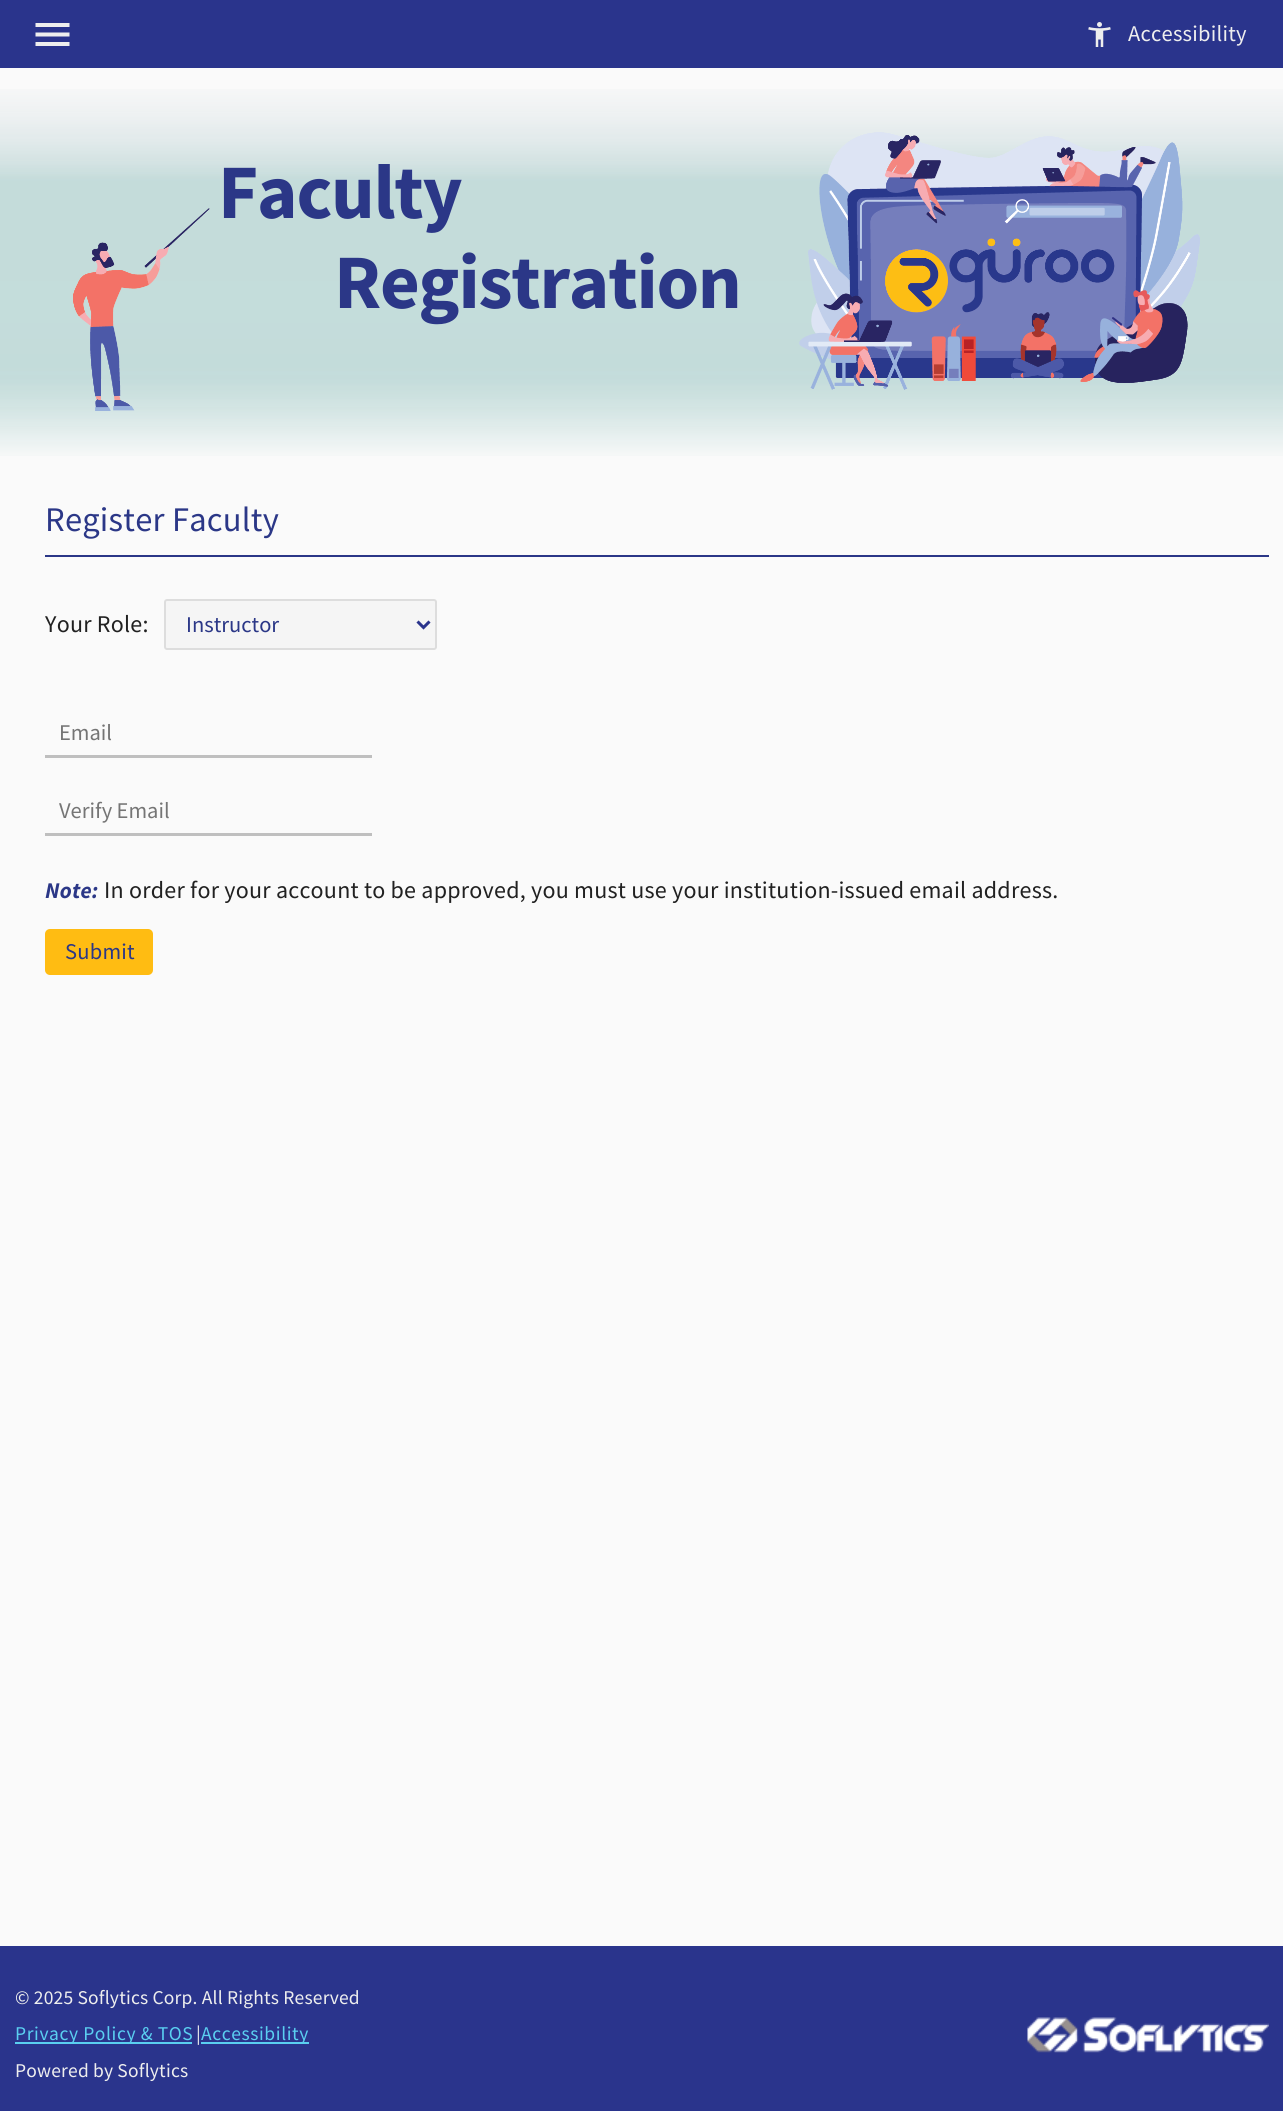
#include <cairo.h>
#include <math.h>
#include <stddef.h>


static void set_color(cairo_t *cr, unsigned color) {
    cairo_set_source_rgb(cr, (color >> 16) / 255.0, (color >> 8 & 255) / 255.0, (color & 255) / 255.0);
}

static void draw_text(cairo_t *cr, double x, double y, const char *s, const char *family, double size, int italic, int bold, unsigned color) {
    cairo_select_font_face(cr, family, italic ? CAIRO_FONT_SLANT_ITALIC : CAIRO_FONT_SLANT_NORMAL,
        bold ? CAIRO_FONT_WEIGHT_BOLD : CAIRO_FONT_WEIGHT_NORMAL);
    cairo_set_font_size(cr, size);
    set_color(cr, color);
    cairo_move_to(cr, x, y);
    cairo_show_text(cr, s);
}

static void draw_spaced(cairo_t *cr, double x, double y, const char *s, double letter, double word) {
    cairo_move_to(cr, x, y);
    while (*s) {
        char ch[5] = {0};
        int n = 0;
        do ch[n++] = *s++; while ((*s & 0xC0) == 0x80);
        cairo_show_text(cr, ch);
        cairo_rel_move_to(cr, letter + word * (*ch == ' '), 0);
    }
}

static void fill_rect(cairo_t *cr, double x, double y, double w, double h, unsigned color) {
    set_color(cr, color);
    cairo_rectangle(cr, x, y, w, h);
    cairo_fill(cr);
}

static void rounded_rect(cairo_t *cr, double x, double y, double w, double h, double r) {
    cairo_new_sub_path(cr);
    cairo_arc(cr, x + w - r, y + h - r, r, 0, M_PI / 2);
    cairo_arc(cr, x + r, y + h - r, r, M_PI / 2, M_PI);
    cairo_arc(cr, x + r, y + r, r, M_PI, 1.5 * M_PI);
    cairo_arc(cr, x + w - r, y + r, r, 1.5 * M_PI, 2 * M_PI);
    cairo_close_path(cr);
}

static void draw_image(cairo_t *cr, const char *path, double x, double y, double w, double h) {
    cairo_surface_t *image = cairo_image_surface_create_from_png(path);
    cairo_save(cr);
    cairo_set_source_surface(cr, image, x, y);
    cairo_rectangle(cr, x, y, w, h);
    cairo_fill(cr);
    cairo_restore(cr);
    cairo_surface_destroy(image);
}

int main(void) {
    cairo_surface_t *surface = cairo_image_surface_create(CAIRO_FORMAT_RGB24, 1283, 2111);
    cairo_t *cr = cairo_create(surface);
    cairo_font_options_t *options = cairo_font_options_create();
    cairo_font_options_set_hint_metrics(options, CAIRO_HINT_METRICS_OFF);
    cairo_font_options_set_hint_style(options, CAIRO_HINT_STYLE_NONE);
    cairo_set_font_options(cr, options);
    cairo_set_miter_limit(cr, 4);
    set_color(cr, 0xFAFAFA);
    cairo_paint(cr);
    fill_rect(cr, 0, 0, 1283, 68, 0x2A348C);
    set_color(cr, 0xEEEEEE);
    cairo_new_path(cr);
    cairo_move_to(cr, 35.5, 46);
    cairo_line_to(cr, 69.5, 46);
    cairo_line_to(cr, 69.5, 42);
    cairo_line_to(cr, 35.5, 42);
    cairo_close_path(cr);
    cairo_move_to(cr, 35.5, 36.5);
    cairo_line_to(cr, 69.5, 36.5);
    cairo_line_to(cr, 69.5, 32.5);
    cairo_line_to(cr, 35.5, 32.5);
    cairo_close_path(cr);
    cairo_move_to(cr, 35.5, 23);
    cairo_line_to(cr, 35.5, 27);
    cairo_line_to(cr, 69.5, 27);
    cairo_line_to(cr, 69.5, 23);
    cairo_close_path(cr);
    cairo_fill(cr);
    draw_image(cr, "assets/img1.png", 1088, 22, 23, 25);
    cairo_select_font_face(cr, "Source Sans Pro", CAIRO_FONT_SLANT_NORMAL, CAIRO_FONT_WEIGHT_NORMAL);
    cairo_set_font_size(cr, 22.5);
    draw_spaced(cr, 1128, 41, "Accessibility", 0.25, 0);
    draw_image(cr, "assets/img2.png", 0, 89, 1283, 367);
    cairo_select_font_face(cr, "Source Sans Pro", CAIRO_FONT_SLANT_NORMAL, CAIRO_FONT_WEIGHT_BOLD);
    cairo_set_font_size(cr, 77);
    set_color(cr, 0x2B3787);
    draw_spaced(cr, 218, 218, "Faculty", -1.25, 0);
    draw_spaced(cr, 334, 308, "Registration", -1.25, 0);
    fill_rect(cr, 45, 555, 1224, 2, 0x2B3787);
    cairo_select_font_face(cr, "Source Sans Pro", CAIRO_FONT_SLANT_NORMAL, CAIRO_FONT_WEIGHT_NORMAL);
    cairo_set_font_size(cr, 34.5);
    draw_spaced(cr, 45, 531, "Register Faculty", 0.25, 0);
    cairo_set_font_size(cr, 24);
    set_color(cr, 0x212121);
    draw_spaced(cr, 45, 632, "Your Role:", 0.25, 0);
    set_color(cr, 0xF5F5F5);
    rounded_rect(cr, 165, 600, 271, 49, 2);
    cairo_fill_preserve(cr);
    set_color(cr, 0xDDDDDD);
    cairo_stroke(cr);
    cairo_new_path(cr);
    cairo_move_to(cr, 417.5, 621.5);
    cairo_line_to(cr, 423.5, 627.5);
    cairo_line_to(cr, 429.5, 621.5);
    set_color(cr, 0x2A348C);
    cairo_set_line_width(cr, 3);
    cairo_stroke(cr);
    draw_text(cr, 186, 632, "Instructor", "Source Sans Pro", 22.5, 0, 0, 0x2B3787);
    fill_rect(cr, 45, 755, 327, 3, 0xBFBFBF);
    draw_text(cr, 59, 740, "Email", "Source Sans Pro", 22.5, 0, 0, 0x757575);
    fill_rect(cr, 45, 833, 327, 3, 0xBFBFBF);
    draw_text(cr, 59, 818, "Verify Email", "Source Sans Pro", 22.5, 0, 0, 0x757575);
    cairo_select_font_face(cr, "Source Sans Pro", CAIRO_FONT_SLANT_ITALIC, CAIRO_FONT_WEIGHT_BOLD);
    set_color(cr, 0x2B3787);
    draw_spaced(cr, 45, 898, "Note:", 0.25, 0);
    cairo_select_font_face(cr, "Source Sans Pro", CAIRO_FONT_SLANT_NORMAL, CAIRO_FONT_WEIGHT_NORMAL);
    cairo_set_font_size(cr, 24);
    set_color(cr, 0x212121);
    draw_spaced(cr, 104, 898, "In order for your account to be approved, you must use your institution-issued email address.", 0.25, 0);
    set_color(cr, 0xFFBC12);
    rounded_rect(cr, 45, 929, 108, 46, 5);
    cairo_fill(cr);
    cairo_set_font_size(cr, 22.5);
    set_color(cr, 0x2B3787);
    draw_spaced(cr, 65, 959, "Submit", 0.25, 0);
    fill_rect(cr, 0, 1946, 1283, 165, 0x2A348C);
    cairo_set_font_size(cr, 19.5);
    set_color(cr, 0xEEEEEE);
    draw_spaced(cr, 15, 2004, "© 2025 Soflytics Corp. All Rights Reserved", 0.2, 0);
    fill_rect(cr, 15, 2042, 177, 2, 0x5ACFF0);
    draw_spaced(cr, 15, 2040, "Privacy Policy & TOS", 0.6, 0);
    set_color(cr, 0xEEEEEE);
    draw_spaced(cr, 196, 2040, "|", 0.2, 0);
    fill_rect(cr, 201, 2042, 108, 2, 0x5ACFF0);
    draw_spaced(cr, 201, 2040, "Accessibility", 0.6, 0);
    set_color(cr, 0xEEEEEE);
    draw_spaced(cr, 15, 2077, "Powered by Soflytics", 0.2, 0);
    draw_image(cr, "assets/img3.png", 1027, 2017, 242, 36);
    cairo_surface_write_to_png(surface, "output.png");
    cairo_font_options_destroy(options);
    cairo_destroy(cr);
    cairo_surface_destroy(surface);
    return 0;
}
